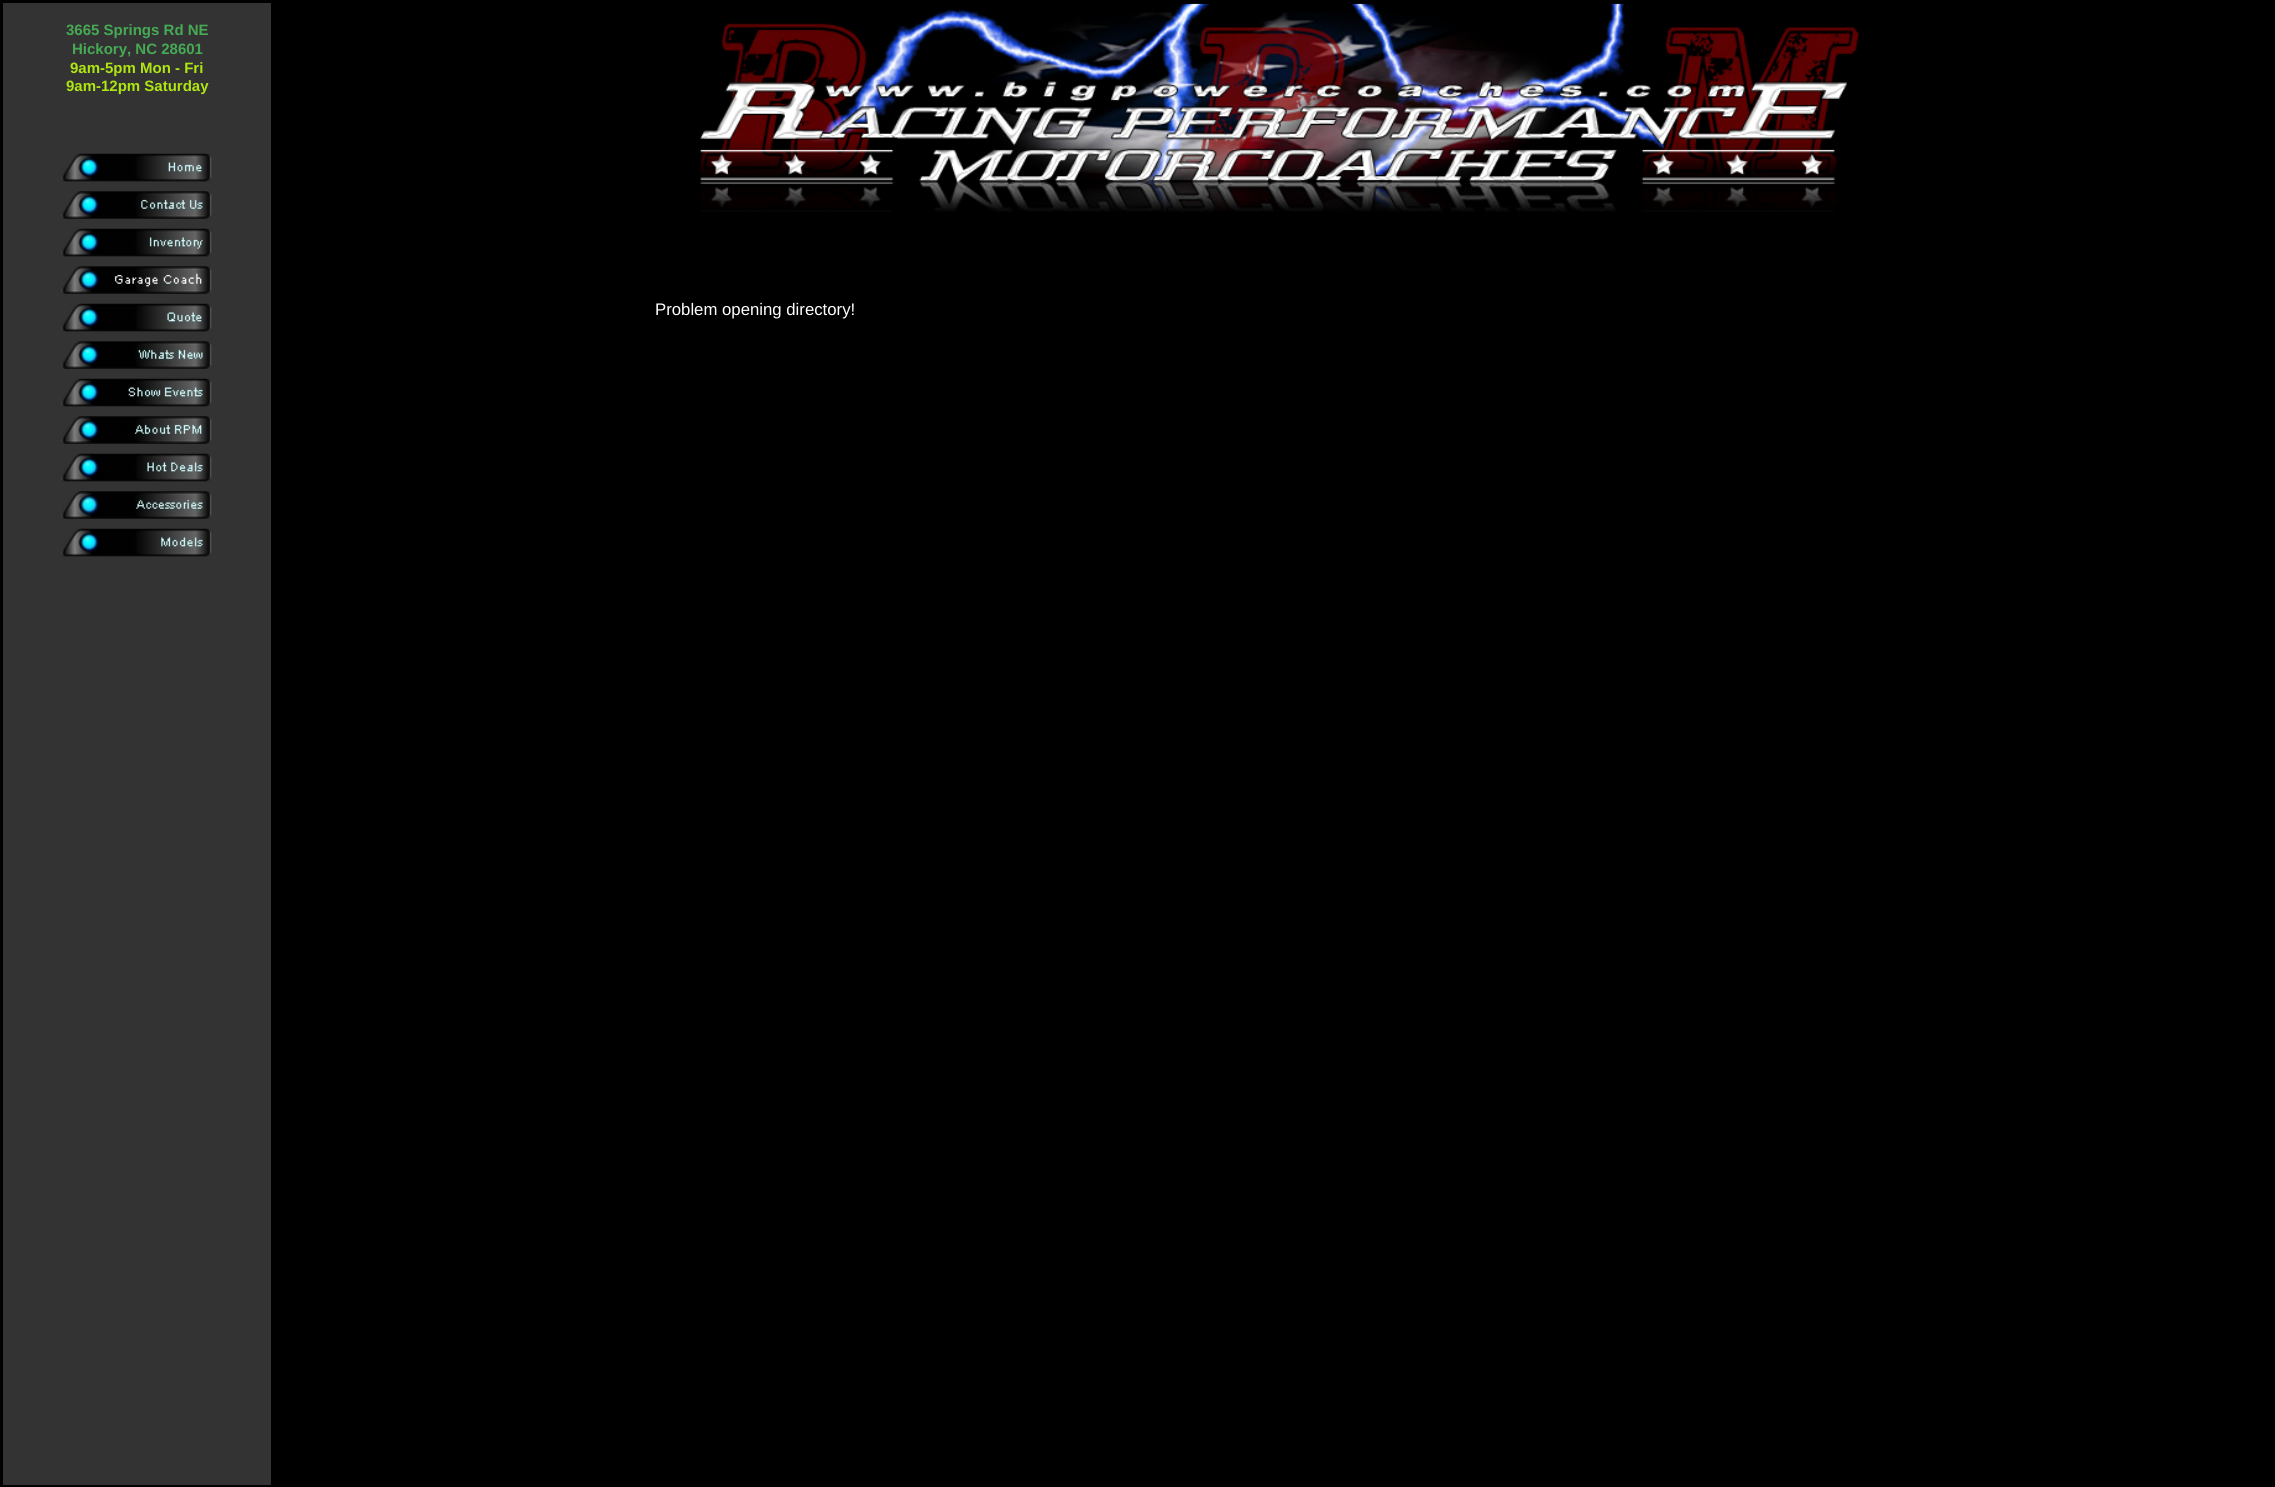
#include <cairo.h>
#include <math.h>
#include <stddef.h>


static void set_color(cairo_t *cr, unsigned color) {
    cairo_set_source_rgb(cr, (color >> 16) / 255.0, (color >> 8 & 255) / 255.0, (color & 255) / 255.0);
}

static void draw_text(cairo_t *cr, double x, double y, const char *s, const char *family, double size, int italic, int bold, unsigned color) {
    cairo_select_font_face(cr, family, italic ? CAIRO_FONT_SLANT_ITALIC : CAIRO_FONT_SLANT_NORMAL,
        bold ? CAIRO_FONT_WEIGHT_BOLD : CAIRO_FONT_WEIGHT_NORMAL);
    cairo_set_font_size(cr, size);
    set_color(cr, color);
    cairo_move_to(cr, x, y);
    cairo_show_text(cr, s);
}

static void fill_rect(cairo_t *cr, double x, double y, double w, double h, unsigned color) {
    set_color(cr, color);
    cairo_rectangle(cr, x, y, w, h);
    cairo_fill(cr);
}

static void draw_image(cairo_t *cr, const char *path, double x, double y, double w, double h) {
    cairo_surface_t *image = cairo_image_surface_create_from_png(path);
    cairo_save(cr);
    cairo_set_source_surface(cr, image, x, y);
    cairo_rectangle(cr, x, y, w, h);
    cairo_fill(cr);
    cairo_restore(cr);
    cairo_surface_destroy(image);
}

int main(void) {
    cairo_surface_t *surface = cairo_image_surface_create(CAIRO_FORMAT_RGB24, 2275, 1487);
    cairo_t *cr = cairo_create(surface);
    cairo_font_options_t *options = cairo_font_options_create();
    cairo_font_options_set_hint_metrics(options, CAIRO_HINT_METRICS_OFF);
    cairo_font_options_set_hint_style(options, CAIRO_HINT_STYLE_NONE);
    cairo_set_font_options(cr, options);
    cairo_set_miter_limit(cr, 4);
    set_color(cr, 0x000000);
    cairo_paint(cr);
    fill_rect(cr, 3, 3, 268, 1482, 0x333333);
    draw_text(cr, 66, 35, "3665 Springs Rd NE", "Liberation Sans", 15, 0, 1, 0x46AA55);
    draw_text(cr, 72, 54, "Hickory, NC 28601", "Liberation Sans", 15, 0, 1, 0x46AA55);
    draw_text(cr, 70, 73, "9am-5pm Mon - Fri", "Liberation Sans", 15, 0, 1, 0xAFE612);
    draw_text(cr, 66, 91, "9am-12pm Saturday", "Liberation Sans", 15, 0, 1, 0xAFE612);
    draw_image(cr, "assets/img1.png", 61, 153, 151, 29);
    draw_image(cr, "assets/img2.png", 61, 191, 151, 28);
    draw_image(cr, "assets/img3.png", 61, 228, 151, 29);
    draw_image(cr, "assets/img4.png", 61, 266, 151, 28);
    draw_image(cr, "assets/img5.png", 61, 303, 151, 29);
    draw_image(cr, "assets/img6.png", 61, 341, 151, 28);
    draw_image(cr, "assets/img7.png", 61, 378, 151, 29);
    draw_image(cr, "assets/img8.png", 61, 416, 151, 28);
    draw_image(cr, "assets/img9.png", 61, 453, 151, 29);
    draw_image(cr, "assets/img10.png", 61, 491, 151, 28);
    draw_image(cr, "assets/img11.png", 61, 528, 151, 29);
    draw_image(cr, "assets/img12.png", 699, 3, 1161, 209);
    draw_text(cr, 655, 315, "Problem opening directory!", "Liberation Sans", 16.75, 0, 0, 0xFFFFFF);
    cairo_surface_write_to_png(surface, "output.png");
    cairo_font_options_destroy(options);
    cairo_destroy(cr);
    cairo_surface_destroy(surface);
    return 0;
}
